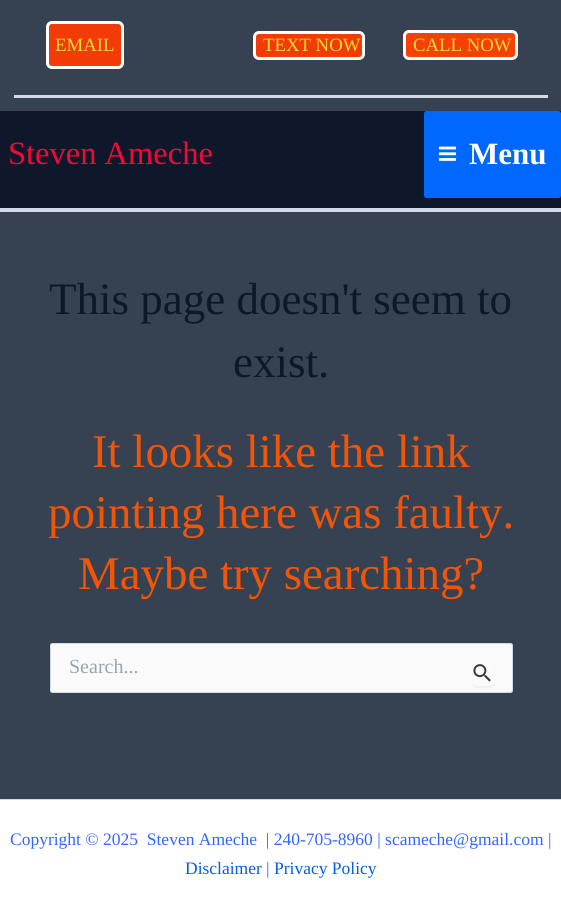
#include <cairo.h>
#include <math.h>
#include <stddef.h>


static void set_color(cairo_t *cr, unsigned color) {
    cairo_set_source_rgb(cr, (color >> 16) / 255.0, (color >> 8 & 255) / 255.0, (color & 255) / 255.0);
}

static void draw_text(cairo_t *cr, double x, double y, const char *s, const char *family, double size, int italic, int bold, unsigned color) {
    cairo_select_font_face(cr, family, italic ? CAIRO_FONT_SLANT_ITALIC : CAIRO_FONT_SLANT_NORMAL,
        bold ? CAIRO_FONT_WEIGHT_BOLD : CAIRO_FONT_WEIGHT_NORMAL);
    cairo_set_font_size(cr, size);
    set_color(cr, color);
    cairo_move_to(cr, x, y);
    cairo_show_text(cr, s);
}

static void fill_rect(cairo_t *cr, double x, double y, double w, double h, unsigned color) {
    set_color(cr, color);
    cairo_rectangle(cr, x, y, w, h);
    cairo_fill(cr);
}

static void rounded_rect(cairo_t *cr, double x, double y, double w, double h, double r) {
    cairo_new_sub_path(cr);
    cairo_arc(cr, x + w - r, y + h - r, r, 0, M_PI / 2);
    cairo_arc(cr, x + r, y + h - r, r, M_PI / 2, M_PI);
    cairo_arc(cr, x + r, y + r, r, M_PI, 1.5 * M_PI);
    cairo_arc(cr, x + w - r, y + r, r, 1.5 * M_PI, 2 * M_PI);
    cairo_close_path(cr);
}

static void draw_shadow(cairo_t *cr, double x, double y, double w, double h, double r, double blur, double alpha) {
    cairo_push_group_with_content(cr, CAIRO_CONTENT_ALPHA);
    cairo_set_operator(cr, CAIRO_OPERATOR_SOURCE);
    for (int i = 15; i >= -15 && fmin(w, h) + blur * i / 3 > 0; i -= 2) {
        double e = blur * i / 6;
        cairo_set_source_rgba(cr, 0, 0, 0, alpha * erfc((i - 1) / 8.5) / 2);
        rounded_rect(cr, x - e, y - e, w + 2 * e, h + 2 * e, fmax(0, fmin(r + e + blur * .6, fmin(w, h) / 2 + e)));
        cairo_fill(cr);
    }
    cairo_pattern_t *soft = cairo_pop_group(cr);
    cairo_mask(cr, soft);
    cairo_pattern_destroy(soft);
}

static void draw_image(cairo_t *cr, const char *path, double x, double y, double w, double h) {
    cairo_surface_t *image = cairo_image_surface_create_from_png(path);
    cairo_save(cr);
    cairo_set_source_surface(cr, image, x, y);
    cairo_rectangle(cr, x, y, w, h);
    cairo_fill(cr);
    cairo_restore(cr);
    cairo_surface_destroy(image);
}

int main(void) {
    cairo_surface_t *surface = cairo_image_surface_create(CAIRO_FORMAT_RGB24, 561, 919);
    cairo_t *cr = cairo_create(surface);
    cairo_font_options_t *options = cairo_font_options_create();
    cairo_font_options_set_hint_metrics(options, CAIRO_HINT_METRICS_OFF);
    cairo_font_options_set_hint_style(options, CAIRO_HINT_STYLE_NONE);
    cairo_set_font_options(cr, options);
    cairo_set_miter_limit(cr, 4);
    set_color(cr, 0x364151);
    cairo_paint(cr);
    fill_rect(cr, 14, 95, 534, 3, 0xD1DAE5);
    set_color(cr, 0xF23B07);
    rounded_rect(cr, 47.5, 22.5, 75, 45, 4.5);
    cairo_fill_preserve(cr);
    set_color(cr, 0xFFFFFF);
    cairo_set_line_width(cr, 3);
    cairo_stroke(cr);
    draw_text(cr, 55, 51, "EMAIL", "Liberation Serif", 18.75, 0, 0, 0xF0DD36);
    set_color(cr, 0xF23B07);
    rounded_rect(cr, 254.5, 32.5, 109, 26, 4.5);
    cairo_fill_preserve(cr);
    set_color(cr, 0xFFFFFF);
    cairo_stroke(cr);
    draw_text(cr, 263, 51, "TEXT NOW", "Liberation Serif", 18.75, 0, 0, 0xF0DD36);
    set_color(cr, 0xF54106);
    rounded_rect(cr, 404.5, 31.5, 112, 27, 4.5);
    cairo_fill_preserve(cr);
    set_color(cr, 0xFFFFFF);
    cairo_stroke(cr);
    draw_text(cr, 413, 51, "CALL NOW", "Liberation Serif", 18.75, 0, 0, 0xF0DD36);
    fill_rect(cr, 0, 111, 561, 97, 0x0F172A);
    fill_rect(cr, 0, 208, 561, 4, 0xD1DAE5);
    draw_text(cr, 8, 164, "Steven Ameche", "Liberation Serif", 32.5, 0, 0, 0xF50837);
    set_color(cr, 0x0067FF);
    rounded_rect(cr, 424, 111, 137, 87, 2.5);
    cairo_fill(cr);
    draw_image(cr, "assets/img1.png", 438, 146, 19, 15);
    draw_text(cr, 469, 164, "Menu", "Liberation Serif", 31, 0, 1, 0xFFFFFF);
    draw_text(cr, 49, 314, "This page doesn't seem to", "Liberation Serif", 45, 0, 0, 0x0F172A);
    draw_text(cr, 233, 377, "exist.", "Liberation Serif", 45, 0, 0, 0x0F172A);
    draw_text(cr, 92, 467, "It looks like the link", "Liberation Serif", 46.9, 0, 0, 0xF25507);
    draw_text(cr, 48, 528, "pointing here was faulty.", "Liberation Serif", 46.9, 0, 0, 0xF25507);
    draw_text(cr, 78, 589, "Maybe try searching?", "Liberation Serif", 46.9, 0, 0, 0xF25507);
    set_color(cr, 0xFAFAFA);
    rounded_rect(cr, 50.5, 643.5, 462, 49, 2);
    cairo_fill_preserve(cr);
    set_color(cr, 0xD1DAE5);
    cairo_set_line_width(cr, 1);
    cairo_stroke(cr);
    draw_text(cr, 69, 673, "Search...", "Liberation Serif", 20, 0, 0, 0x9CA3AF);
    cairo_save(cr);
    cairo_set_fill_rule(cr, CAIRO_FILL_RULE_EVEN_ODD);
    cairo_new_path(cr);
    cairo_move_to(cr, 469, 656);
    cairo_line_to(cr, 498, 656);
    cairo_line_to(cr, 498, 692);
    cairo_line_to(cr, 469, 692);
    cairo_close_path(cr);
    cairo_move_to(cr, 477, 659);
    cairo_line_to(cr, 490, 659);
    cairo_curve_to(cr, 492, 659, 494, 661, 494, 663);
    cairo_line_to(cr, 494, 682);
    cairo_curve_to(cr, 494, 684, 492, 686, 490, 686);
    cairo_line_to(cr, 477, 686);
    cairo_curve_to(cr, 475, 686, 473, 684, 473, 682);
    cairo_line_to(cr, 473, 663);
    cairo_curve_to(cr, 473, 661, 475, 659, 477, 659);
    cairo_close_path(cr);
    cairo_clip(cr);
    set_color(cr, 0x000000);
    draw_shadow(cr, 473, 660, 21, 28, 4, 1, 0.05);
    cairo_restore(cr);
    draw_image(cr, "assets/img2.png", 473, 664, 18, 18);
    fill_rect(cr, 0, 800, 561, 119, 0xFFFFFF);
    fill_rect(cr, 0, 799, 561, 1, 0xD1DAE5);
    draw_text(cr, 10, 845, "Copyright © 2025  Steven Ameche  | 240-705-8960 | scameche@gmail.com |", "Liberation Serif", 17.5, 0, 0, 0x3366FF);
    draw_text(cr, 185, 874, "Disclaimer", "Liberation Serif", 17.5, 0, 0, 0x005EE9);
    draw_text(cr, 266, 874, "|", "Liberation Serif", 17.5, 0, 0, 0x3366FF);
    draw_text(cr, 274, 874, "Privacy Policy", "Liberation Serif", 17.5, 0, 0, 0x005EE9);
    cairo_surface_write_to_png(surface, "output.png");
    cairo_font_options_destroy(options);
    cairo_destroy(cr);
    cairo_surface_destroy(surface);
    return 0;
}
